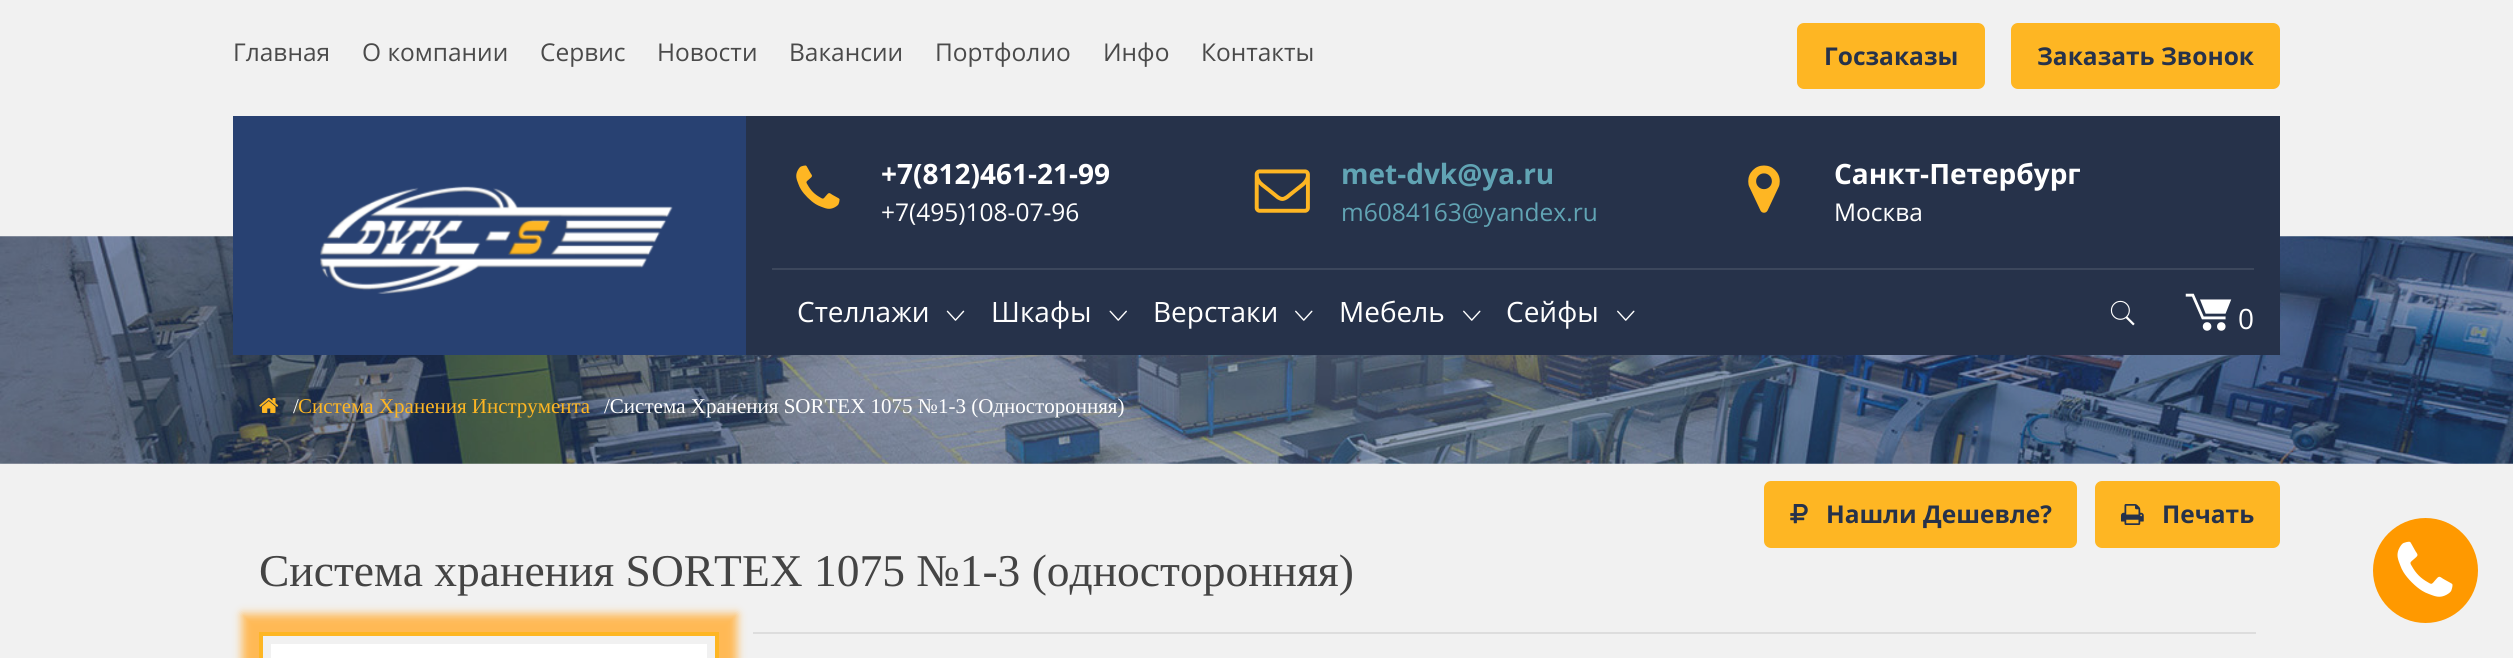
#include <cairo.h>
#include <math.h>
#include <stddef.h>


static void set_color(cairo_t *cr, unsigned color) {
    cairo_set_source_rgb(cr, (color >> 16) / 255.0, (color >> 8 & 255) / 255.0, (color & 255) / 255.0);
}

static void draw_text(cairo_t *cr, double x, double y, const char *s, const char *family, double size, int italic, int bold, unsigned color) {
    cairo_select_font_face(cr, family, italic ? CAIRO_FONT_SLANT_ITALIC : CAIRO_FONT_SLANT_NORMAL,
        bold ? CAIRO_FONT_WEIGHT_BOLD : CAIRO_FONT_WEIGHT_NORMAL);
    cairo_set_font_size(cr, size);
    set_color(cr, color);
    cairo_move_to(cr, x, y);
    cairo_show_text(cr, s);
}

static void fill_rect(cairo_t *cr, double x, double y, double w, double h, unsigned color) {
    set_color(cr, color);
    cairo_rectangle(cr, x, y, w, h);
    cairo_fill(cr);
}

static void rounded_rect(cairo_t *cr, double x, double y, double w, double h, double r) {
    cairo_new_sub_path(cr);
    cairo_arc(cr, x + w - r, y + h - r, r, 0, M_PI / 2);
    cairo_arc(cr, x + r, y + h - r, r, M_PI / 2, M_PI);
    cairo_arc(cr, x + r, y + r, r, M_PI, 1.5 * M_PI);
    cairo_arc(cr, x + w - r, y + r, r, 1.5 * M_PI, 2 * M_PI);
    cairo_close_path(cr);
}

static void draw_shadow(cairo_t *cr, double x, double y, double w, double h, double r, double blur, double alpha) {
    cairo_push_group_with_content(cr, CAIRO_CONTENT_ALPHA);
    cairo_set_operator(cr, CAIRO_OPERATOR_SOURCE);
    for (int i = 15; i >= -15 && fmin(w, h) + blur * i / 3 > 0; i -= 2) {
        double e = blur * i / 6;
        cairo_set_source_rgba(cr, 0, 0, 0, alpha * erfc((i - 1) / 8.5) / 2);
        rounded_rect(cr, x - e, y - e, w + 2 * e, h + 2 * e, fmax(0, fmin(r + e + blur * .6, fmin(w, h) / 2 + e)));
        cairo_fill(cr);
    }
    cairo_pattern_t *soft = cairo_pop_group(cr);
    cairo_mask(cr, soft);
    cairo_pattern_destroy(soft);
}

static void draw_image(cairo_t *cr, const char *path, double x, double y, double w, double h) {
    cairo_surface_t *image = cairo_image_surface_create_from_png(path);
    cairo_save(cr);
    cairo_set_source_surface(cr, image, x, y);
    cairo_rectangle(cr, x, y, w, h);
    cairo_fill(cr);
    cairo_restore(cr);
    cairo_surface_destroy(image);
}

int main(void) {
    cairo_surface_t *surface = cairo_image_surface_create(CAIRO_FORMAT_RGB24, 2513, 658);
    cairo_t *cr = cairo_create(surface);
    cairo_font_options_t *options = cairo_font_options_create();
    cairo_font_options_set_hint_metrics(options, CAIRO_HINT_METRICS_OFF);
    cairo_font_options_set_hint_style(options, CAIRO_HINT_STYLE_NONE);
    cairo_set_font_options(cr, options);
    cairo_set_miter_limit(cr, 4);
    set_color(cr, 0xF1F1F1);
    cairo_paint(cr);
    draw_text(cr, 233, 61, "Главная", "Open Sans", 24.5, 0, 0, 0x4A4A4A);
    draw_text(cr, 362, 61, "О компании", "Open Sans", 24.5, 0, 0, 0x4A4A4A);
    draw_text(cr, 540, 61, "Сервис", "Open Sans", 24.5, 0, 0, 0x4A4A4A);
    draw_text(cr, 657, 61, "Новости", "Open Sans", 24.5, 0, 0, 0x4A4A4A);
    draw_text(cr, 789, 61, "Вакансии", "Open Sans", 24.5, 0, 0, 0x4A4A4A);
    draw_text(cr, 935, 61, "Портфолио", "Open Sans", 24.5, 0, 0, 0x4A4A4A);
    draw_text(cr, 1103, 61, "Инфо", "Open Sans", 24.5, 0, 0, 0x4A4A4A);
    draw_text(cr, 1201, 61, "Контакты", "Open Sans", 24.5, 0, 0, 0x4A4A4A);
    set_color(cr, 0xFEB623);
    rounded_rect(cr, 1797, 23, 188, 66, 7);
    cairo_fill(cr);
    draw_text(cr, 1824, 65, "Госзаказы", "Open Sans", 24.5, 0, 1, 0x26324A);
    set_color(cr, 0xFEB623);
    rounded_rect(cr, 2011, 23, 269, 66, 7);
    cairo_fill(cr);
    draw_text(cr, 2037, 65, "Заказать Звонок", "Open Sans", 24.5, 0, 1, 0x26324A);
    draw_image(cr, "assets/img10.png", 0, 236, 2513, 228);
    fill_rect(cr, 233, 116, 513, 239, 0x284172);
    draw_image(cr, "assets/img1.png", 320, 186, 353, 108);
    fill_rect(cr, 746, 116, 1534, 239, 0x26324A);
    fill_rect(cr, 772, 268, 1482, 2, 0x3C475C);
    draw_image(cr, "assets/img2.png", 796, 165, 44, 44);
    draw_text(cr, 881, 184, "+7(812)461-21-99", "Open Sans", 28, 0, 1, 0xFFFFFF);
    draw_text(cr, 881, 221, "+7(495)108-07-96", "Open Sans", 24.5, 0, 0, 0xFFFFFF);
    draw_image(cr, "assets/img3.png", 1254, 169, 56, 44);
    draw_text(cr, 1341, 184, "met-dvk@ya.ru", "Open Sans", 28, 0, 1, 0x61A4B4);
    draw_text(cr, 1341, 221, "m6084163@yandex.ru", "Open Sans", 24.5, 0, 0, 0x61A4B4);
    draw_image(cr, "assets/img4.png", 1748, 165, 32, 48);
    draw_text(cr, 1834, 184, "Санкт-Петербург", "Open Sans", 28, 0, 1, 0xFFFFFF);
    draw_text(cr, 1834, 221, "Москва", "Open Sans", 24.5, 0, 0, 0xFFFFFF);
    draw_text(cr, 797, 322, "Стеллажи", "Open Sans", 28, 0, 0, 0xFFFFFF);
    draw_image(cr, "assets/img5.png", 946, 310, 19, 11);
    draw_text(cr, 991, 322, "Шкафы", "Open Sans", 28, 0, 0, 0xFFFFFF);
    draw_image(cr, "assets/img6.png", 1109, 310, 18, 11);
    draw_text(cr, 1153, 322, "Верстаки", "Open Sans", 28, 0, 0, 0xFFFFFF);
    draw_image(cr, "assets/img7.png", 1295, 310, 18, 11);
    draw_text(cr, 1339, 322, "Мебель", "Open Sans", 28, 0, 0, 0xFFFFFF);
    draw_image(cr, "assets/img7.png", 1463, 310, 18, 11);
    draw_text(cr, 1506, 322, "Сейфы", "Open Sans", 28, 0, 0, 0xFFFFFF);
    draw_image(cr, "assets/img7.png", 1617, 310, 18, 11);
    draw_image(cr, "assets/img8.png", 2110, 300, 25, 26);
    draw_image(cr, "assets/img9.png", 2185, 293, 47, 38);
    draw_text(cr, 2238, 329, "0", "Open Sans", 28, 0, 0, 0xFFFFFF);
    draw_image(cr, "assets/img11.png", 259, 398, 20, 15);
    draw_text(cr, 293, 413, "/", "Liberation Serif", 21, 0, 0, 0xFFFFFF);
    draw_text(cr, 298, 413, "Система Хранения Инструмента", "Liberation Serif", 21, 0, 0, 0xFEB623);
    draw_text(cr, 604, 413, "/Система Хранения SORTEX 1075 №1-3 (Односторонняя)", "Liberation Serif", 21, 0, 0, 0xFFFFFF);
    set_color(cr, 0xFEB623);
    rounded_rect(cr, 1764, 481, 313, 67, 7);
    cairo_fill(cr);
    draw_image(cr, "assets/img12.png", 1790, 504, 18, 20);
    draw_text(cr, 1826, 523, "Нашли Дешевле?", "Open Sans", 24.5, 0, 1, 0x26324A);
    set_color(cr, 0xFEB623);
    rounded_rect(cr, 2095, 481, 185, 67, 7);
    cairo_fill(cr);
    draw_image(cr, "assets/img13.png", 2121, 504, 23, 21);
    draw_text(cr, 2162, 523, "Печать", "Open Sans", 24.5, 0, 1, 0x26324A);
    draw_text(cr, 259, 586, "Система хранения SORTEX 1075 №1-3 (односторонняя)", "Liberation Serif", 45.5, 0, 0, 0x444444);
    cairo_save(cr);
    cairo_set_fill_rule(cr, CAIRO_FILL_RULE_EVEN_ODD);
    cairo_new_path(cr);
    cairo_move_to(cr, 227, 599);
    cairo_line_to(cr, 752, 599);
    cairo_line_to(cr, 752, 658);
    cairo_line_to(cr, 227, 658);
    cairo_close_path(cr);
    cairo_move_to(cr, 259, 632);
    cairo_line_to(cr, 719, 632);
    cairo_line_to(cr, 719, 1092);
    cairo_line_to(cr, 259, 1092);
    cairo_close_path(cr);
    cairo_clip(cr);
    set_color(cr, 0xFFB955);
    draw_shadow(cr, 242, 614, 495, 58, 0, 4.5, 1);
    cairo_restore(cr);
    cairo_rectangle(cr, 261, 634, 456, 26);
    set_color(cr, 0xFEB623);
    cairo_set_line_width(cr, 4);
    cairo_stroke(cr);
    fill_rect(cr, 271, 644, 436, 14, 0xFFFFFF);
    fill_rect(cr, 753, 632, 1503, 2, 0xDDDDDD);
    set_color(cr, 0xFF9900);
    cairo_arc(cr, 2425.5, 570.5, 52.5, 0, 2 * M_PI);
    cairo_fill(cr);
    draw_image(cr, "assets/img14.png", 2397, 541, 56, 56);
    cairo_surface_write_to_png(surface, "output.png");
    cairo_font_options_destroy(options);
    cairo_destroy(cr);
    cairo_surface_destroy(surface);
    return 0;
}
